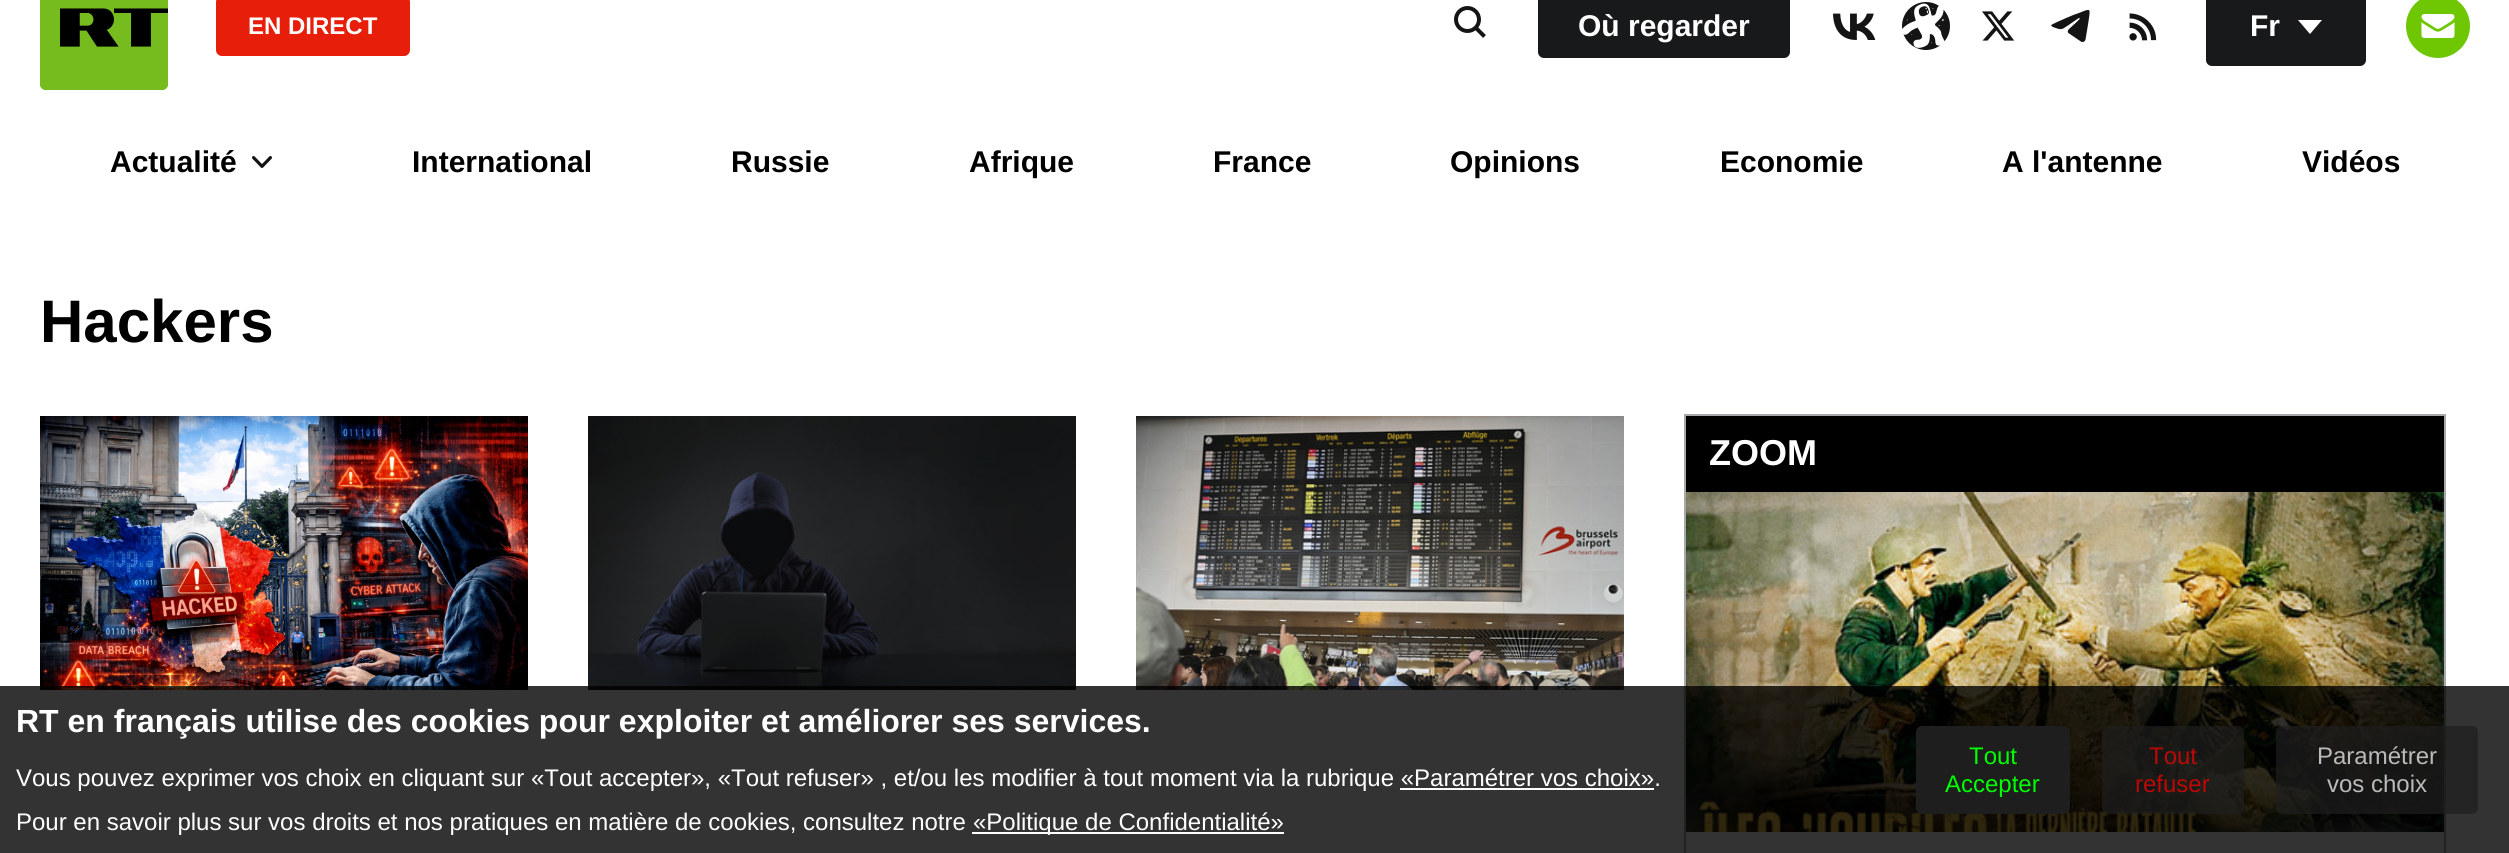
#include <cairo.h>
#include <math.h>
#include <stddef.h>


static void set_color(cairo_t *cr, unsigned color) {
    cairo_set_source_rgb(cr, (color >> 16) / 255.0, (color >> 8 & 255) / 255.0, (color & 255) / 255.0);
}

static void draw_text(cairo_t *cr, double x, double y, const char *s, const char *family, double size, int italic, int bold, unsigned color) {
    cairo_select_font_face(cr, family, italic ? CAIRO_FONT_SLANT_ITALIC : CAIRO_FONT_SLANT_NORMAL,
        bold ? CAIRO_FONT_WEIGHT_BOLD : CAIRO_FONT_WEIGHT_NORMAL);
    cairo_set_font_size(cr, size);
    set_color(cr, color);
    cairo_move_to(cr, x, y);
    cairo_show_text(cr, s);
}

static void fill_rect(cairo_t *cr, double x, double y, double w, double h, unsigned color) {
    set_color(cr, color);
    cairo_rectangle(cr, x, y, w, h);
    cairo_fill(cr);
}

static void rounded_rect(cairo_t *cr, double x, double y, double w, double h, double r) {
    cairo_new_sub_path(cr);
    cairo_arc(cr, x + w - r, y + h - r, r, 0, M_PI / 2);
    cairo_arc(cr, x + r, y + h - r, r, M_PI / 2, M_PI);
    cairo_arc(cr, x + r, y + r, r, M_PI, 1.5 * M_PI);
    cairo_arc(cr, x + w - r, y + r, r, 1.5 * M_PI, 2 * M_PI);
    cairo_close_path(cr);
}

static void draw_image(cairo_t *cr, const char *path, double x, double y, double w, double h) {
    cairo_surface_t *image = cairo_image_surface_create_from_png(path);
    cairo_save(cr);
    cairo_set_source_surface(cr, image, x, y);
    cairo_rectangle(cr, x, y, w, h);
    cairo_fill(cr);
    cairo_restore(cr);
    cairo_surface_destroy(image);
}

int main(void) {
    cairo_surface_t *surface = cairo_image_surface_create(CAIRO_FORMAT_RGB24, 2509, 853);
    cairo_t *cr = cairo_create(surface);
    cairo_font_options_t *options = cairo_font_options_create();
    cairo_font_options_set_hint_metrics(options, CAIRO_HINT_METRICS_OFF);
    cairo_font_options_set_hint_style(options, CAIRO_HINT_STYLE_NONE);
    cairo_set_font_options(cr, options);
    cairo_set_miter_limit(cr, 4);
    set_color(cr, 0xFFFFFF);
    cairo_paint(cr);
    draw_image(cr, "assets/img1.png", 40, 0, 128, 90);
    set_color(cr, 0xE61E0A);
    rounded_rect(cr, 216, -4, 194, 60, 6);
    cairo_fill(cr);
    draw_text(cr, 248, 34, "EN DIRECT", "Liberation Sans", 24, 0, 1, 0xFFFFFF);
    cairo_new_path(cr);
    cairo_arc(cr, 1467.5, 19.5, 11.5, 0, 2 * M_PI);
    set_color(cr, 0x141414);
    cairo_set_line_width(cr, 4);
    cairo_stroke(cr);
    cairo_new_path(cr);
    cairo_move_to(cr, 1476, 28);
    cairo_line_to(cr, 1484.5, 36.5);
    cairo_stroke(cr);
    set_color(cr, 0x18191A);
    rounded_rect(cr, 1538, -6, 252, 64, 6);
    cairo_fill(cr);
    draw_text(cr, 1578, 36, "Où regarder", "Liberation Sans", 30, 0, 1, 0xFFFFFF);
    draw_image(cr, "assets/img2.png", 1833, 13, 43, 27);
    draw_image(cr, "assets/img3.png", 1902, 2, 48, 48);
    draw_image(cr, "assets/img4.png", 1982, 11, 33, 30);
    draw_image(cr, "assets/img5.png", 2051, 10, 39, 32);
    draw_image(cr, "assets/img6.png", 2129, 13, 28, 28);
    set_color(cr, 0x18191A);
    rounded_rect(cr, 2206, -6, 160, 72, 6);
    cairo_fill(cr);
    draw_text(cr, 2250, 36, "Fr", "Liberation Sans", 30, 0, 1, 0xFFFFFF);
    cairo_new_path(cr);
    cairo_move_to(cr, 2298, 20);
    cairo_line_to(cr, 2322, 20);
    cairo_line_to(cr, 2310, 34);
    cairo_close_path(cr);
    cairo_fill(cr);
    set_color(cr, 0x6EC702);
    cairo_arc(cr, 2438, 26, 32, 0, 2 * M_PI);
    cairo_fill(cr);
    draw_image(cr, "assets/img7.png", 2421, 14, 34, 24);
    draw_text(cr, 110, 172, "Actualité", "Liberation Sans", 30, 0, 1, 0x000000);
    draw_image(cr, "assets/img8.png", 252, 156, 20, 12);
    draw_text(cr, 412, 172, "International", "Liberation Sans", 30, 0, 1, 0x000000);
    draw_text(cr, 731, 172, "Russie", "Liberation Sans", 30, 0, 1, 0x000000);
    draw_text(cr, 969, 172, "Afrique", "Liberation Sans", 30, 0, 1, 0x000000);
    draw_text(cr, 1213, 172, "France", "Liberation Sans", 30, 0, 1, 0x000000);
    draw_text(cr, 1450, 172, "Opinions", "Liberation Sans", 30, 0, 1, 0x000000);
    draw_text(cr, 1720, 172, "Economie", "Liberation Sans", 30, 0, 1, 0x000000);
    draw_text(cr, 2002, 172, "A l'antenne", "Liberation Sans", 30, 0, 1, 0x000000);
    draw_text(cr, 2302, 172, "Vidéos", "Liberation Sans", 30, 0, 1, 0x000000);
    draw_text(cr, 40, 342, "Hackers", "Liberation Sans", 60, 0, 1, 0x000000);
    draw_image(cr, "assets/img9.png", 40, 416, 488, 274);
    draw_image(cr, "assets/img10.png", 588, 416, 488, 274);
    draw_image(cr, "assets/img11.png", 1136, 416, 488, 274);
    cairo_rectangle(cr, 1685, 415, 760, 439);
    set_color(cr, 0xA6A8AB);
    cairo_set_line_width(cr, 2);
    cairo_stroke(cr);
    fill_rect(cr, 1686, 416, 758, 76, 0x000000);
    draw_text(cr, 1709, 465, "ZOOM", "Liberation Sans", 36, 0, 1, 0xFFFFFF);
    draw_image(cr, "assets/img12.png", 1686, 492, 758, 340);
    cairo_set_source_rgba(cr, 0, 0, 0, 0.8);
    cairo_rectangle(cr, 0, 686, 2509, 167);
    cairo_fill(cr);
    draw_text(cr, 16, 732, "RT en français utilise des cookies pour exploiter et améliorer ses services.", "Liberation Sans", 32, 0, 1, 0xFFFFFF);
    draw_text(cr, 16, 786, "Vous pouvez exprimer vos choix en cliquant sur «Tout accepter», «Tout refuser» , et/ou les modifier à tout moment via la rubrique «Paramétrer vos choix».", "Liberation Sans", 24, 0, 0, 0xFFFFFF);
    fill_rect(cr, 1400, 788, 254, 2, 0xFFFFFF);
    draw_text(cr, 16, 830, "Pour en savoir plus sur vos droits et nos pratiques en matière de cookies, consultez notre", "Liberation Sans", 24, 0, 0, 0xFFFFFF);
    fill_rect(cr, 972, 832, 312, 2, 0xFFFFFF);
    draw_text(cr, 973, 830, "«Politique de Confidentialité»", "Liberation Sans", 24, 0, 0, 0xFFFFFF);
    set_color(cr, 0x1E1E1E);
    rounded_rect(cr, 1916, 726, 154, 88, 6);
    cairo_fill(cr);
    draw_text(cr, 1969, 764, "Tout", "Liberation Sans", 24, 0, 0, 0x00FF00);
    draw_text(cr, 1945, 792, "Accepter", "Liberation Sans", 24, 0, 0, 0x00FF00);
    cairo_set_source_rgba(cr, 0.118, 0.118, 0.118, 0.7);
    rounded_rect(cr, 2102, 726, 142, 88, 6);
    cairo_fill(cr);
    draw_text(cr, 2149, 764, "Tout", "Liberation Sans", 24, 0, 0, 0xBA0807);
    draw_text(cr, 2135, 792, "refuser", "Liberation Sans", 24, 0, 0, 0xBA0807);
    cairo_set_source_rgba(cr, 0.118, 0.118, 0.118, 0.7);
    rounded_rect(cr, 2276, 726, 202, 88, 6);
    cairo_fill(cr);
    draw_text(cr, 2317, 764, "Paramétrer", "Liberation Sans", 24, 0, 0, 0xBABAB9);
    draw_text(cr, 2327, 792, "vos choix", "Liberation Sans", 24, 0, 0, 0xBABAB9);
    cairo_surface_write_to_png(surface, "output.png");
    cairo_font_options_destroy(options);
    cairo_destroy(cr);
    cairo_surface_destroy(surface);
    return 0;
}
